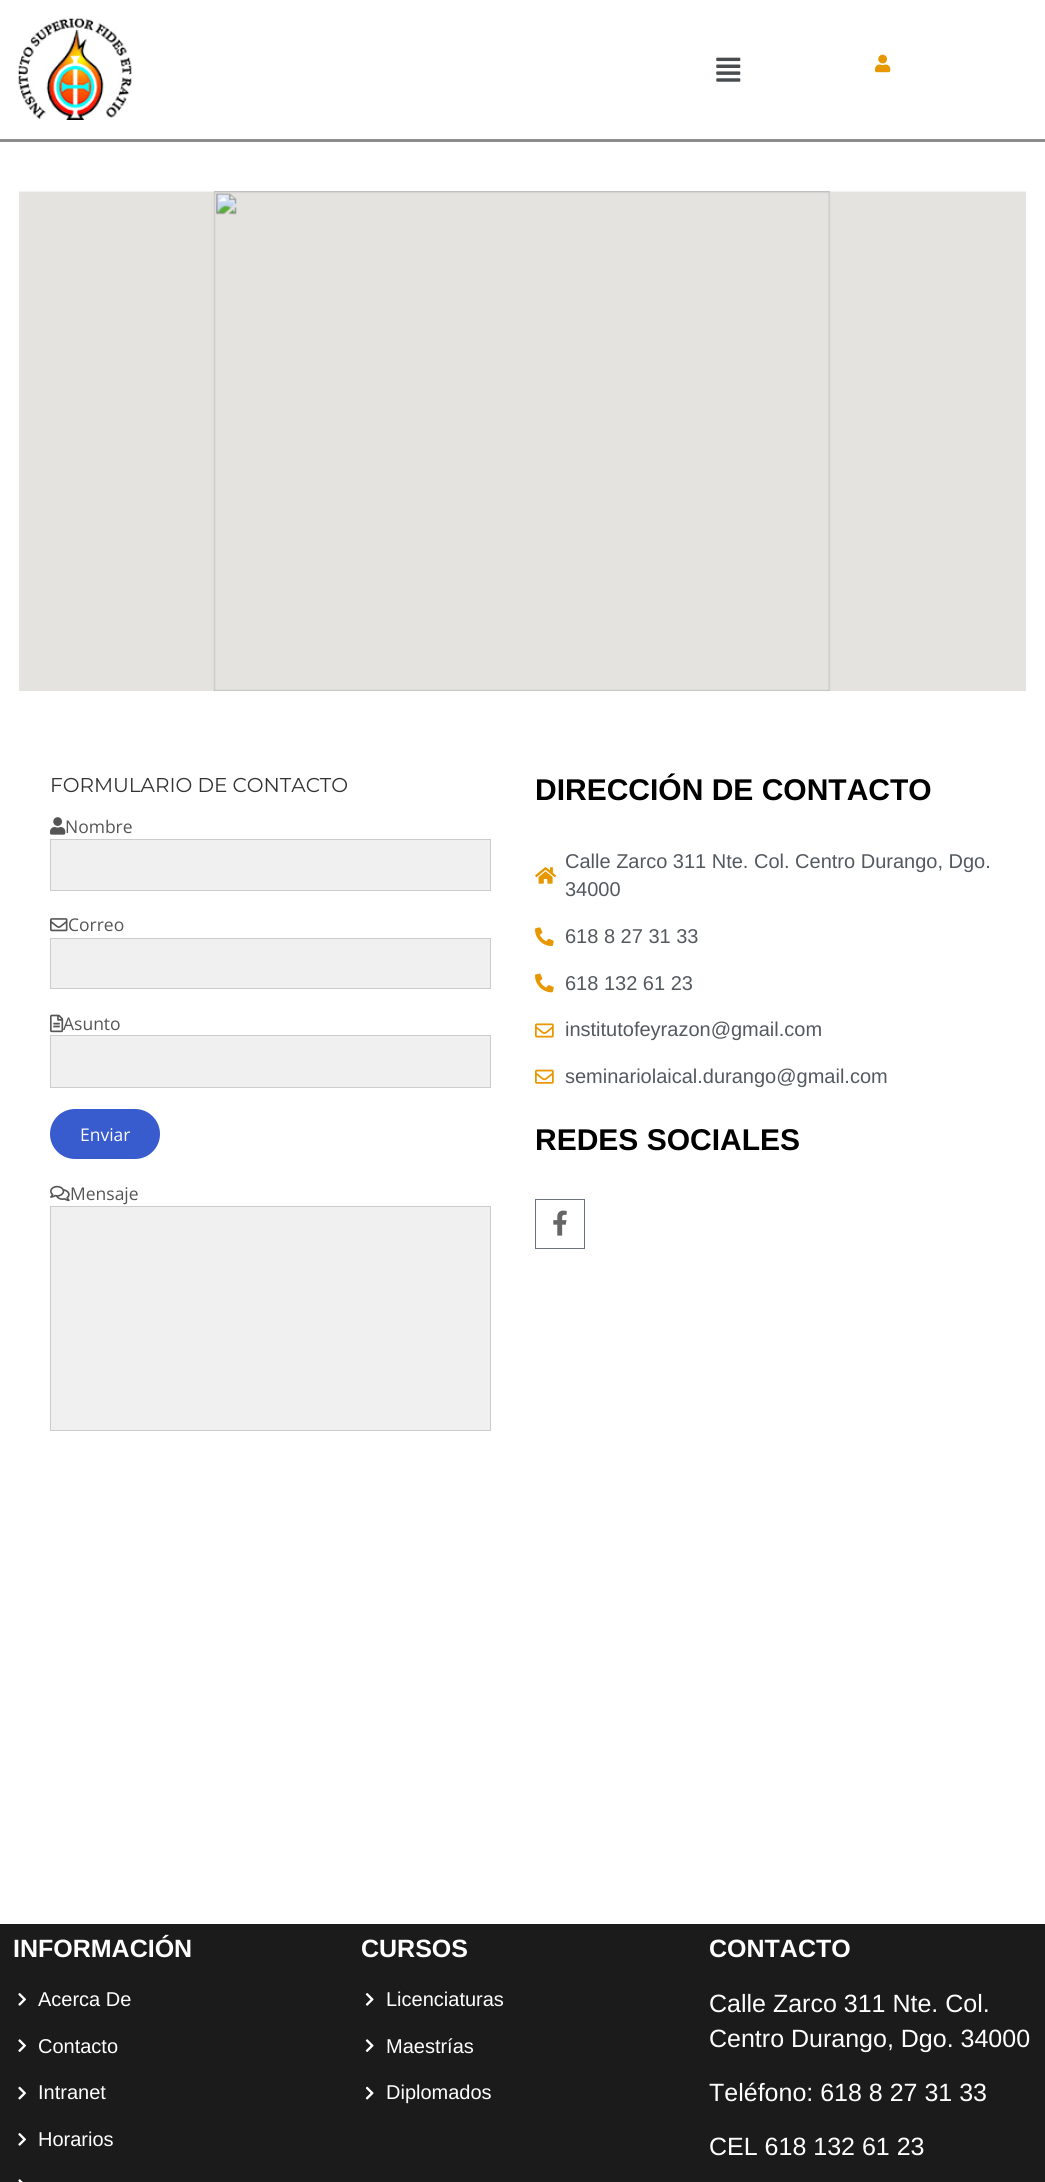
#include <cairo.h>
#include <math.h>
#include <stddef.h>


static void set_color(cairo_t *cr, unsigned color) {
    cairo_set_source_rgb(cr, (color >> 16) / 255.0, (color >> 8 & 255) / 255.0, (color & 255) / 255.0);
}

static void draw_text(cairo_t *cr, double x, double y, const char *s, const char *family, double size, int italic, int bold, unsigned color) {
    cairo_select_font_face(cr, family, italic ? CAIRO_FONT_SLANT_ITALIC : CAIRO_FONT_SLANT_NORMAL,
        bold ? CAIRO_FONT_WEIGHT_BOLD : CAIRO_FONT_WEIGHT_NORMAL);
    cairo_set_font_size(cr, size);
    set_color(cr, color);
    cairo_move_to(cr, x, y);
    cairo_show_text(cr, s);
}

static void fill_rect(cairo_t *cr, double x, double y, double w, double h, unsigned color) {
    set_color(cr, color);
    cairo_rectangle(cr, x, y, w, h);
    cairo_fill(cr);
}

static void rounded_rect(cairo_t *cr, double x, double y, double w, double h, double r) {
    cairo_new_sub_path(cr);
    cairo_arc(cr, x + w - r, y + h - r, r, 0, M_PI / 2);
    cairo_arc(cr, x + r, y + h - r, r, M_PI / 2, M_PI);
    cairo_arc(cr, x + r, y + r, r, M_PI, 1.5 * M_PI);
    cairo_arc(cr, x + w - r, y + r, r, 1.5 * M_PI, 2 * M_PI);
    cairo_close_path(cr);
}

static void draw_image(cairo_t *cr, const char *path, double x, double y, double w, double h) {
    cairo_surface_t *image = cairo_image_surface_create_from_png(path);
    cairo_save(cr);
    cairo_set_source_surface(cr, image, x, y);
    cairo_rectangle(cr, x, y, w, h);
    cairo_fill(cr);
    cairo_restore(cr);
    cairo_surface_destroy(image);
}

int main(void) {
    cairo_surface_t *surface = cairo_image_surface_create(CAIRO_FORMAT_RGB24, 1045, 2182);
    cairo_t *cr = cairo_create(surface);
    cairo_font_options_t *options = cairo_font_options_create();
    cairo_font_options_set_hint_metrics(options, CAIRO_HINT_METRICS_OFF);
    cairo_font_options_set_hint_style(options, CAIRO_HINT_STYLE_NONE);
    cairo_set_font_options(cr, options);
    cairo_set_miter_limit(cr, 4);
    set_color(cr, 0xFFFFFF);
    cairo_paint(cr);
    fill_rect(cr, 0, 139, 1045, 3, 0x8D8D8D);
    draw_image(cr, "assets/img1.png", 18, 18, 114, 102);
    draw_image(cr, "assets/img2.png", 716, 57, 25, 25);
    draw_image(cr, "assets/img3.png", 875, 54, 16, 19);
    draw_image(cr, "assets/img4.png", 19, 191, 1007, 500);
    draw_text(cr, 50, 792, "FORMULARIO DE CONTACTO", "Montserrat", 20, 0, 0, 0x333333);
    draw_image(cr, "assets/img5.png", 50, 817, 16, 18);
    draw_text(cr, 65, 833, "Nombre", "Open Sans", 17.5, 0, 0, 0x555555);
    set_color(cr, 0xF0F0F0);
    cairo_rectangle(cr, 50.5, 839.5, 440, 51);
    cairo_fill_preserve(cr);
    set_color(cr, 0xCCCCCC);
    cairo_set_line_width(cr, 1);
    cairo_stroke(cr);
    draw_image(cr, "assets/img6.png", 50, 918, 18, 14);
    draw_text(cr, 68, 931, "Correo", "Open Sans", 17.5, 0, 0, 0x555555);
    set_color(cr, 0xF0F0F0);
    cairo_rectangle(cr, 50.5, 938.5, 440, 50);
    cairo_fill_preserve(cr);
    set_color(cr, 0xCCCCCC);
    cairo_stroke(cr);
    draw_image(cr, "assets/img7.png", 50, 1014, 14, 19);
    draw_text(cr, 63, 1030, "Asunto", "Open Sans", 17.5, 0, 0, 0x555555);
    set_color(cr, 0xF0F0F0);
    cairo_rectangle(cr, 50.5, 1035.5, 440, 52);
    cairo_fill_preserve(cr);
    set_color(cr, 0xCCCCCC);
    cairo_stroke(cr);
    set_color(cr, 0x385BCE);
    rounded_rect(cr, 51.5, 1110.5, 107, 47, 23.5);
    cairo_fill_preserve(cr);
    cairo_set_line_width(cr, 3);
    cairo_stroke(cr);
    draw_text(cr, 80, 1141, "Enviar", "Open Sans", 17.5, 0, 0, 0xFFFFFF);
    draw_image(cr, "assets/img8.png", 50, 1185, 20, 17);
    draw_text(cr, 70, 1200, "Mensaje", "Open Sans", 17.5, 0, 0, 0x555555);
    set_color(cr, 0xF0F0F0);
    cairo_rectangle(cr, 50.5, 1206.5, 440, 224);
    cairo_fill_preserve(cr);
    set_color(cr, 0xCCCCCC);
    cairo_set_line_width(cr, 1);
    cairo_stroke(cr);
    draw_text(cr, 535, 800, "DIRECCIÓN DE CONTACTO", "Liberation Sans", 30, 0, 1, 0x000000);
    draw_image(cr, "assets/img9.png", 535, 867, 22, 17);
    draw_text(cr, 565, 868, "Calle Zarco 311 Nte. Col. Centro Durango, Dgo.", "Liberation Sans", 20, 0, 0, 0x54595F);
    draw_text(cr, 565, 896, "34000", "Liberation Sans", 20, 0, 0, 0x54595F);
    draw_image(cr, "assets/img10.png", 535, 927, 19, 20);
    draw_text(cr, 565, 943, "618 8 27 31 33", "Liberation Sans", 20, 0, 0, 0x54595F);
    draw_image(cr, "assets/img11.png", 535, 973, 19, 20);
    draw_text(cr, 565, 990, "618 132 61 23", "Liberation Sans", 20, 0, 0, 0x54595F);
    draw_image(cr, "assets/img12.png", 535, 1023, 19, 15);
    draw_text(cr, 565, 1036, "institutofeyrazon@gmail.com", "Liberation Sans", 20, 0, 0, 0x54595F);
    draw_image(cr, "assets/img13.png", 535, 1069, 19, 15);
    draw_text(cr, 565, 1083, "seminariolaical.durango@gmail.com", "Liberation Sans", 20, 0, 0, 0x54595F);
    draw_text(cr, 535, 1150, "REDES SOCIALES", "Liberation Sans", 30, 0, 1, 0x000000);
    cairo_rectangle(cr, 535.5, 1199.5, 49, 49);
    set_color(cr, 0x69727D);
    cairo_stroke(cr);
    draw_image(cr, "assets/img14.png", 553, 1210, 14, 26);
    fill_rect(cr, 0, 1924, 1045, 258, 0x1B1B1B);
    draw_text(cr, 13, 1957, "INFORMACIÓN", "Liberation Sans", 25, 0, 1, 0xFFFFFF);
    draw_image(cr, "assets/img15.png", 18, 1993, 8, 13);
    draw_text(cr, 38, 2006, "Acerca De", "Liberation Sans", 20, 0, 0, 0xFFFFFF);
    draw_image(cr, "assets/img16.png", 18, 2039, 8, 13);
    draw_text(cr, 38, 2053, "Contacto", "Liberation Sans", 20, 0, 0, 0xFFFFFF);
    draw_image(cr, "assets/img17.png", 18, 2086, 8, 14);
    draw_text(cr, 38, 2099, "Intranet", "Liberation Sans", 20, 0, 0, 0xFFFFFF);
    draw_image(cr, "assets/img15.png", 18, 2133, 8, 13);
    draw_text(cr, 38, 2146, "Horarios", "Liberation Sans", 20, 0, 0, 0xFFFFFF);
    draw_image(cr, "assets/img18.png", 18, 2179, 5, 3);
    draw_text(cr, 361, 1957, "CURSOS", "Liberation Sans", 25, 0, 1, 0xFFFFFF);
    draw_image(cr, "assets/img19.png", 365, 1993, 9, 13);
    draw_text(cr, 386, 2006, "Licenciaturas", "Liberation Sans", 20, 0, 0, 0xFFFFFF);
    draw_image(cr, "assets/img20.png", 365, 2039, 9, 13);
    draw_text(cr, 386, 2053, "Maestrías", "Liberation Sans", 20, 0, 0, 0xFFFFFF);
    draw_image(cr, "assets/img21.png", 365, 2086, 9, 14);
    draw_text(cr, 386, 2099, "Diplomados", "Liberation Sans", 20, 0, 0, 0xFFFFFF);
    draw_text(cr, 709, 1957, "CONTACTO", "Liberation Sans", 25, 0, 1, 0xFFFFFF);
    draw_text(cr, 709, 2012, "Calle Zarco 311 Nte. Col.", "Liberation Sans", 25, 0, 0, 0xFFFFFF);
    draw_text(cr, 709, 2047, "Centro Durango, Dgo. 34000", "Liberation Sans", 25, 0, 0, 0xFFFFFF);
    draw_text(cr, 709, 2101, "Teléfono: 618 8 27 31 33", "Liberation Sans", 25, 0, 0, 0xFFFFFF);
    draw_text(cr, 709, 2155, "CEL 618 132 61 23", "Liberation Sans", 25, 0, 0, 0xFFFFFF);
    cairo_surface_write_to_png(surface, "output.png");
    cairo_font_options_destroy(options);
    cairo_destroy(cr);
    cairo_surface_destroy(surface);
    return 0;
}
